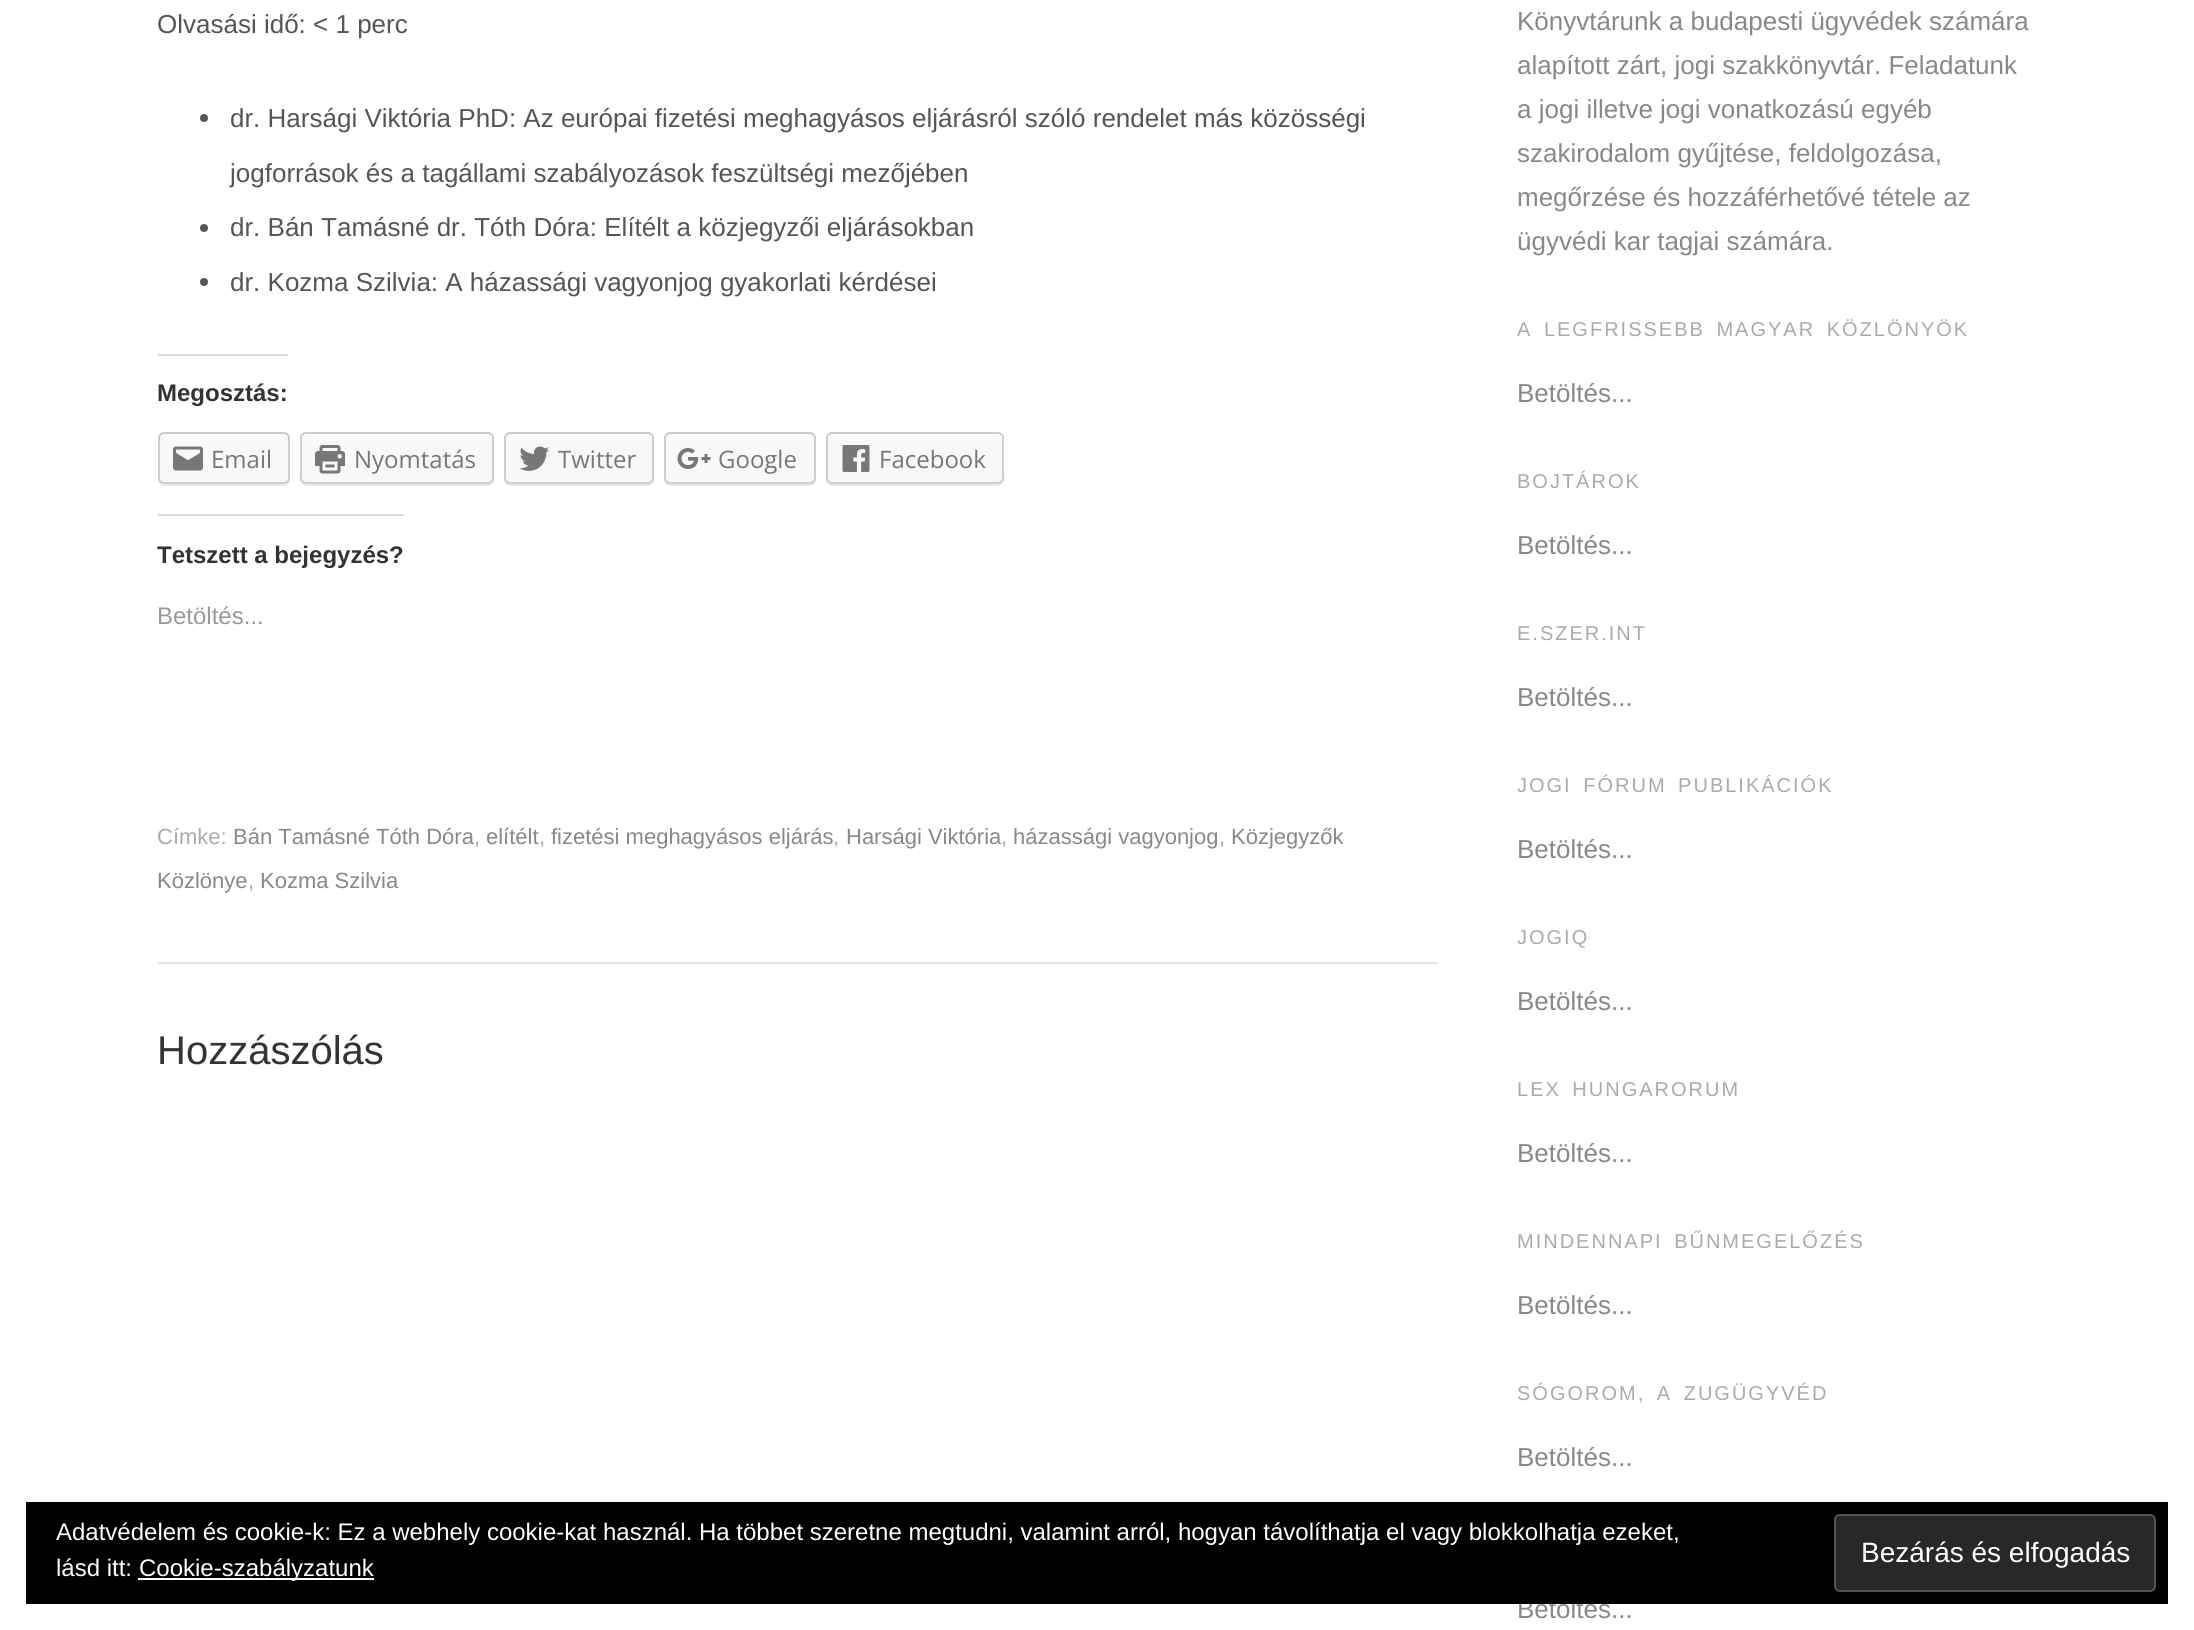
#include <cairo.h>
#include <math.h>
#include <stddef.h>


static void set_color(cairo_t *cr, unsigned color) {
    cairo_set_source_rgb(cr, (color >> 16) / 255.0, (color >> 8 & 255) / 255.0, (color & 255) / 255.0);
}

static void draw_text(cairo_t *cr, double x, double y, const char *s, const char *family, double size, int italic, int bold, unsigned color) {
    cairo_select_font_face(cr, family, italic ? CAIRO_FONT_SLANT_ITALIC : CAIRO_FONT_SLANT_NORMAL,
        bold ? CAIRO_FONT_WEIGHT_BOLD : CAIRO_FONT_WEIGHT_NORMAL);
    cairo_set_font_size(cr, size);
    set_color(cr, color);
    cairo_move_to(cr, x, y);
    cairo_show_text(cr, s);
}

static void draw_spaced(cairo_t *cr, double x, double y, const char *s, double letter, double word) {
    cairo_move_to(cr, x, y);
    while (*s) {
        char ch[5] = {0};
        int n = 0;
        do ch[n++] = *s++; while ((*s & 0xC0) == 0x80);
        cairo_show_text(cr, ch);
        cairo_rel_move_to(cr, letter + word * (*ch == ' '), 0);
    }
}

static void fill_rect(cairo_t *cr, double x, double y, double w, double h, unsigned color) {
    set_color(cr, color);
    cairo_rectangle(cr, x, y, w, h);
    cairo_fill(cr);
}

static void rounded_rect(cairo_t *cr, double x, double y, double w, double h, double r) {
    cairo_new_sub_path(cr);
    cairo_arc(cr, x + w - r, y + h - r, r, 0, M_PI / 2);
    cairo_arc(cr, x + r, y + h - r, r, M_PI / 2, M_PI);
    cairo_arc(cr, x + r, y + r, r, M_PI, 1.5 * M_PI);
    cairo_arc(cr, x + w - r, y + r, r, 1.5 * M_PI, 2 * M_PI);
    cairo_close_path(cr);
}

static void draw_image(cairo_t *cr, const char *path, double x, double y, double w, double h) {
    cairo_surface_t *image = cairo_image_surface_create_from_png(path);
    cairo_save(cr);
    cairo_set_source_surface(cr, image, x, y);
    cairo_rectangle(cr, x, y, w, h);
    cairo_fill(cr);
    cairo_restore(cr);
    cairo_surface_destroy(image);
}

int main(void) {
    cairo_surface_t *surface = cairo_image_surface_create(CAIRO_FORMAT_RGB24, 2194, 1630);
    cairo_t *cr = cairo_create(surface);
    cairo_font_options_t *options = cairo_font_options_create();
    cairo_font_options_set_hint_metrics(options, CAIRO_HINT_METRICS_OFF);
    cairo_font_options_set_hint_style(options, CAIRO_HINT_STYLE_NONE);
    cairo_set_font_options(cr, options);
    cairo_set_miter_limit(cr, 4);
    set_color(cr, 0xFFFFFF);
    cairo_paint(cr);
    fill_rect(cr, 158, 962, 1280, 2, 0xE5E5E5);
    draw_text(cr, 157, 33, "Olvasási idő: < 1 perc", "Liberation Sans", 26, 0, 0, 0x555555);
    cairo_new_path(cr);
    cairo_arc(cr, 204, 118, 4, 0, 2 * M_PI);
    cairo_fill(cr);
    draw_text(cr, 230, 127, "dr. Harsági Viktória PhD: Az európai fizetési meghagyásos eljárásról szóló rendelet más közösségi", "Liberation Sans", 26, 0, 0, 0x555555);
    draw_text(cr, 230, 182, "jogforrások és a tagállami szabályozások feszültségi mezőjében", "Liberation Sans", 26, 0, 0, 0x555555);
    cairo_new_path(cr);
    cairo_arc(cr, 204, 228, 4, 0, 2 * M_PI);
    cairo_fill(cr);
    draw_text(cr, 230, 236, "dr. Bán Tamásné dr. Tóth Dóra: Elítélt a közjegyzői eljárásokban", "Liberation Sans", 26, 0, 0, 0x555555);
    cairo_new_path(cr);
    cairo_arc(cr, 204, 282, 4, 0, 2 * M_PI);
    cairo_fill(cr);
    draw_text(cr, 230, 291, "dr. Kozma Szilvia: A házassági vagyonjog gyakorlati kérdései", "Liberation Sans", 26, 0, 0, 0x555555);
    fill_rect(cr, 158, 354, 130, 2, 0xDDDDDD);
    draw_text(cr, 157, 401, "Megosztás:", "Liberation Sans", 24, 0, 1, 0x333333);
    set_color(cr, 0xEBEBEB);
    cairo_new_path(cr);
    cairo_move_to(cr, 158, 478);
    cairo_line_to(cr, 158, 480);
    cairo_curve_to(cr, 158, 483, 161, 486, 164, 486);
    cairo_line_to(cr, 284, 486);
    cairo_curve_to(cr, 287, 486, 290, 483, 290, 480);
    cairo_line_to(cr, 290, 478);
    cairo_curve_to(cr, 290, 481, 287, 484, 284, 484);
    cairo_line_to(cr, 164, 484);
    cairo_curve_to(cr, 161, 484, 158, 481, 158, 478);
    cairo_close_path(cr);
    cairo_fill(cr);
    set_color(cr, 0xF8F8F8);
    rounded_rect(cr, 159, 433, 130, 50, 5);
    cairo_fill_preserve(cr);
    set_color(cr, 0xCCCCCC);
    cairo_stroke(cr);
    draw_image(cr, "assets/img1.png", 173, 446, 30, 25);
    draw_text(cr, 211, 468, "Email", "Open Sans", 24, 0, 0, 0x777777);
    set_color(cr, 0xEBEBEB);
    cairo_new_path(cr);
    cairo_move_to(cr, 300, 478);
    cairo_line_to(cr, 300, 480);
    cairo_curve_to(cr, 300, 483, 303, 486, 306, 486);
    cairo_line_to(cr, 488, 486);
    cairo_curve_to(cr, 491, 486, 494, 483, 494, 480);
    cairo_line_to(cr, 494, 478);
    cairo_curve_to(cr, 494, 481, 491, 484, 488, 484);
    cairo_line_to(cr, 306, 484);
    cairo_curve_to(cr, 303, 484, 300, 481, 300, 478);
    cairo_close_path(cr);
    cairo_fill(cr);
    set_color(cr, 0xF8F8F8);
    rounded_rect(cr, 301, 433, 192, 50, 5);
    cairo_fill_preserve(cr);
    set_color(cr, 0xCCCCCC);
    cairo_stroke(cr);
    draw_image(cr, "assets/img2.png", 315, 445, 30, 29);
    draw_text(cr, 354, 468, "Nyomtatás", "Open Sans", 24, 0, 0, 0x777777);
    set_color(cr, 0xEBEBEB);
    cairo_new_path(cr);
    cairo_move_to(cr, 504, 478);
    cairo_line_to(cr, 504, 480);
    cairo_curve_to(cr, 504, 483, 507, 486, 510, 486);
    cairo_line_to(cr, 648, 486);
    cairo_curve_to(cr, 651, 486, 654, 483, 654, 480);
    cairo_line_to(cr, 654, 478);
    cairo_curve_to(cr, 654, 481, 651, 484, 648, 484);
    cairo_line_to(cr, 510, 484);
    cairo_curve_to(cr, 507, 484, 504, 481, 504, 478);
    cairo_close_path(cr);
    cairo_fill(cr);
    set_color(cr, 0xF8F8F8);
    rounded_rect(cr, 505, 433, 148, 50, 5);
    cairo_fill_preserve(cr);
    set_color(cr, 0xCCCCCC);
    cairo_stroke(cr);
    draw_image(cr, "assets/img3.png", 519, 446, 31, 25);
    draw_text(cr, 558, 468, "Twitter", "Open Sans", 24, 0, 0, 0x777777);
    set_color(cr, 0xEBEBEB);
    cairo_new_path(cr);
    cairo_move_to(cr, 664, 478);
    cairo_line_to(cr, 664, 480);
    cairo_curve_to(cr, 664, 483, 667, 486, 670, 486);
    cairo_line_to(cr, 810, 486);
    cairo_curve_to(cr, 813, 486, 816, 483, 816, 480);
    cairo_line_to(cr, 816, 478);
    cairo_curve_to(cr, 816, 481, 813, 484, 810, 484);
    cairo_line_to(cr, 670, 484);
    cairo_curve_to(cr, 667, 484, 664, 481, 664, 478);
    cairo_close_path(cr);
    cairo_fill(cr);
    set_color(cr, 0xF8F8F8);
    rounded_rect(cr, 665, 433, 150, 50, 5);
    cairo_fill_preserve(cr);
    set_color(cr, 0xCCCCCC);
    cairo_stroke(cr);
    draw_image(cr, "assets/img4.png", 677, 448, 34, 21);
    draw_text(cr, 718, 468, "Google", "Open Sans", 24, 0, 0, 0x777777);
    set_color(cr, 0xEBEBEB);
    cairo_new_path(cr);
    cairo_move_to(cr, 826, 478);
    cairo_line_to(cr, 826, 480);
    cairo_curve_to(cr, 826, 483, 829, 486, 832, 486);
    cairo_line_to(cr, 998, 486);
    cairo_curve_to(cr, 1001, 486, 1004, 483, 1004, 480);
    cairo_line_to(cr, 1004, 478);
    cairo_curve_to(cr, 1004, 481, 1001, 484, 998, 484);
    cairo_line_to(cr, 832, 484);
    cairo_curve_to(cr, 829, 484, 826, 481, 826, 478);
    cairo_close_path(cr);
    cairo_fill(cr);
    set_color(cr, 0xF8F8F8);
    rounded_rect(cr, 827, 433, 176, 50, 5);
    cairo_fill_preserve(cr);
    set_color(cr, 0xCCCCCC);
    cairo_stroke(cr);
    draw_image(cr, "assets/img5.png", 842, 445, 28, 27);
    draw_text(cr, 879, 468, "Facebook", "Open Sans", 24, 0, 0, 0x777777);
    fill_rect(cr, 158, 514, 246, 2, 0xDDDDDD);
    draw_text(cr, 157, 563, "Tetszett a bejegyzés?", "Liberation Sans", 24, 0, 1, 0x333333);
    draw_text(cr, 157, 624, "Betöltés...", "Liberation Sans", 24, 0, 0, 0x999999);
    draw_text(cr, 157, 844, "Címke:", "Liberation Sans", 22, 0, 0, 0xAAAAAA);
    draw_text(cr, 233, 844, "Bán Tamásné Tóth Dóra", "Liberation Sans", 22, 0, 0, 0x888888);
    draw_text(cr, 474, 844, ",", "Liberation Sans", 22, 0, 0, 0xAAAAAA);
    draw_text(cr, 486, 844, "elítélt", "Liberation Sans", 22, 0, 0, 0x888888);
    draw_text(cr, 539, 844, ",", "Liberation Sans", 22, 0, 0, 0xAAAAAA);
    draw_text(cr, 551, 844, "fizetési meghagyásos eljárás", "Liberation Sans", 22, 0, 0, 0x888888);
    draw_text(cr, 833, 844, ",", "Liberation Sans", 22, 0, 0, 0xAAAAAA);
    draw_text(cr, 846, 844, "Harsági Viktória", "Liberation Sans", 22, 0, 0, 0x888888);
    draw_text(cr, 1001, 844, ",", "Liberation Sans", 22, 0, 0, 0xAAAAAA);
    draw_text(cr, 1013, 844, "házassági vagyonjog", "Liberation Sans", 22, 0, 0, 0x888888);
    draw_text(cr, 1219, 844, ",", "Liberation Sans", 22, 0, 0, 0xAAAAAA);
    draw_text(cr, 1231, 844, "Közjegyzők", "Liberation Sans", 22, 0, 0, 0x888888);
    draw_text(cr, 157, 888, "Közlönye", "Liberation Sans", 22, 0, 0, 0x888888);
    draw_text(cr, 248, 888, ",", "Liberation Sans", 22, 0, 0, 0xAAAAAA);
    draw_text(cr, 260, 888, "Kozma Szilvia", "Liberation Sans", 22, 0, 0, 0x888888);
    draw_text(cr, 157, 1064, "Hozzászólás", "Liberation Sans", 40, 0, 0, 0x333333);
    draw_text(cr, 1517, 30, "Könyvtárunk a budapesti ügyvédek számára", "Liberation Sans", 26, 0, 0, 0x888888);
    draw_text(cr, 1517, 74, "alapított zárt, jogi szakkönyvtár. Feladatunk", "Liberation Sans", 26, 0, 0, 0x888888);
    draw_text(cr, 1517, 118, "a jogi illetve jogi vonatkozású egyéb", "Liberation Sans", 26, 0, 0, 0x888888);
    draw_text(cr, 1517, 162, "szakirodalom gyűjtése, feldolgozása,", "Liberation Sans", 26, 0, 0, 0x888888);
    draw_text(cr, 1517, 206, "megőrzése és hozzáférhetővé tétele az", "Liberation Sans", 26, 0, 0, 0x888888);
    draw_text(cr, 1517, 250, "ügyvédi kar tagjai számára.", "Liberation Sans", 26, 0, 0, 0x888888);
    cairo_set_font_size(cr, 20);
    set_color(cr, 0xAAAAAA);
    draw_spaced(cr, 1517, 336, "A LEGFRISSEBB MAGYAR KÖZLÖNYÖK", 2, 4);
    draw_text(cr, 1517, 402, "Betöltés...", "Liberation Sans", 26, 0, 0, 0x888888);
    cairo_set_font_size(cr, 20);
    set_color(cr, 0xAAAAAA);
    draw_spaced(cr, 1517, 488, "BOJTÁROK", 2, 0);
    draw_text(cr, 1517, 554, "Betöltés...", "Liberation Sans", 26, 0, 0, 0x888888);
    cairo_set_font_size(cr, 20);
    set_color(cr, 0xAAAAAA);
    draw_spaced(cr, 1517, 640, "E.SZER.INT", 2, 0);
    draw_text(cr, 1517, 706, "Betöltés...", "Liberation Sans", 26, 0, 0, 0x888888);
    cairo_set_font_size(cr, 20);
    set_color(cr, 0xAAAAAA);
    draw_spaced(cr, 1517, 792, "JOGI FÓRUM PUBLIKÁCIÓK", 2, 4);
    draw_text(cr, 1517, 858, "Betöltés...", "Liberation Sans", 26, 0, 0, 0x888888);
    cairo_set_font_size(cr, 20);
    set_color(cr, 0xAAAAAA);
    draw_spaced(cr, 1517, 944, "JOGIQ", 2, 0);
    draw_text(cr, 1517, 1010, "Betöltés...", "Liberation Sans", 26, 0, 0, 0x888888);
    cairo_set_font_size(cr, 20);
    set_color(cr, 0xAAAAAA);
    draw_spaced(cr, 1517, 1096, "LEX HUNGARORUM", 2, 4);
    draw_text(cr, 1517, 1162, "Betöltés...", "Liberation Sans", 26, 0, 0, 0x888888);
    cairo_set_font_size(cr, 20);
    set_color(cr, 0xAAAAAA);
    draw_spaced(cr, 1517, 1248, "MINDENNAPI BŰNMEGELŐZÉS", 2, 4);
    draw_text(cr, 1517, 1314, "Betöltés...", "Liberation Sans", 26, 0, 0, 0x888888);
    cairo_set_font_size(cr, 20);
    set_color(cr, 0xAAAAAA);
    draw_spaced(cr, 1517, 1400, "SÓGOROM, A ZUGÜGYVÉD", 2, 4);
    draw_text(cr, 1517, 1466, "Betöltés...", "Liberation Sans", 26, 0, 0, 0x888888);
    draw_text(cr, 1517, 1618, "Betöltés...", "Liberation Sans", 26, 0, 0, 0x888888);
    fill_rect(cr, 26, 1502, 2142, 102, 0x000000);
    draw_text(cr, 56, 1540, "Adatvédelem és cookie-k: Ez a webhely cookie-kat használ. Ha többet szeretne megtudni, valamint arról, hogyan távolíthatja el vagy blokkolhatja ezeket,", "Liberation Sans", 24, 0, 0, 0xFFFFFF);
    draw_text(cr, 56, 1576, "lásd itt:", "Liberation Sans", 24, 0, 0, 0xFFFFFF);
    fill_rect(cr, 138, 1578, 236, 2, 0xFFFFFF);
    draw_text(cr, 139, 1576, "Cookie-szabályzatunk", "Liberation Sans", 24, 0, 0, 0xFFFFFF);
    set_color(cr, 0x282828);
    rounded_rect(cr, 1835, 1515, 320, 76, 5);
    cairo_fill_preserve(cr);
    set_color(cr, 0x535353);
    cairo_stroke(cr);
    draw_text(cr, 1861, 1562, "Bezárás és elfogadás", "Liberation Sans", 28, 0, 0, 0xFFFFFF);
    cairo_surface_write_to_png(surface, "output.png");
    cairo_font_options_destroy(options);
    cairo_destroy(cr);
    cairo_surface_destroy(surface);
    return 0;
}
